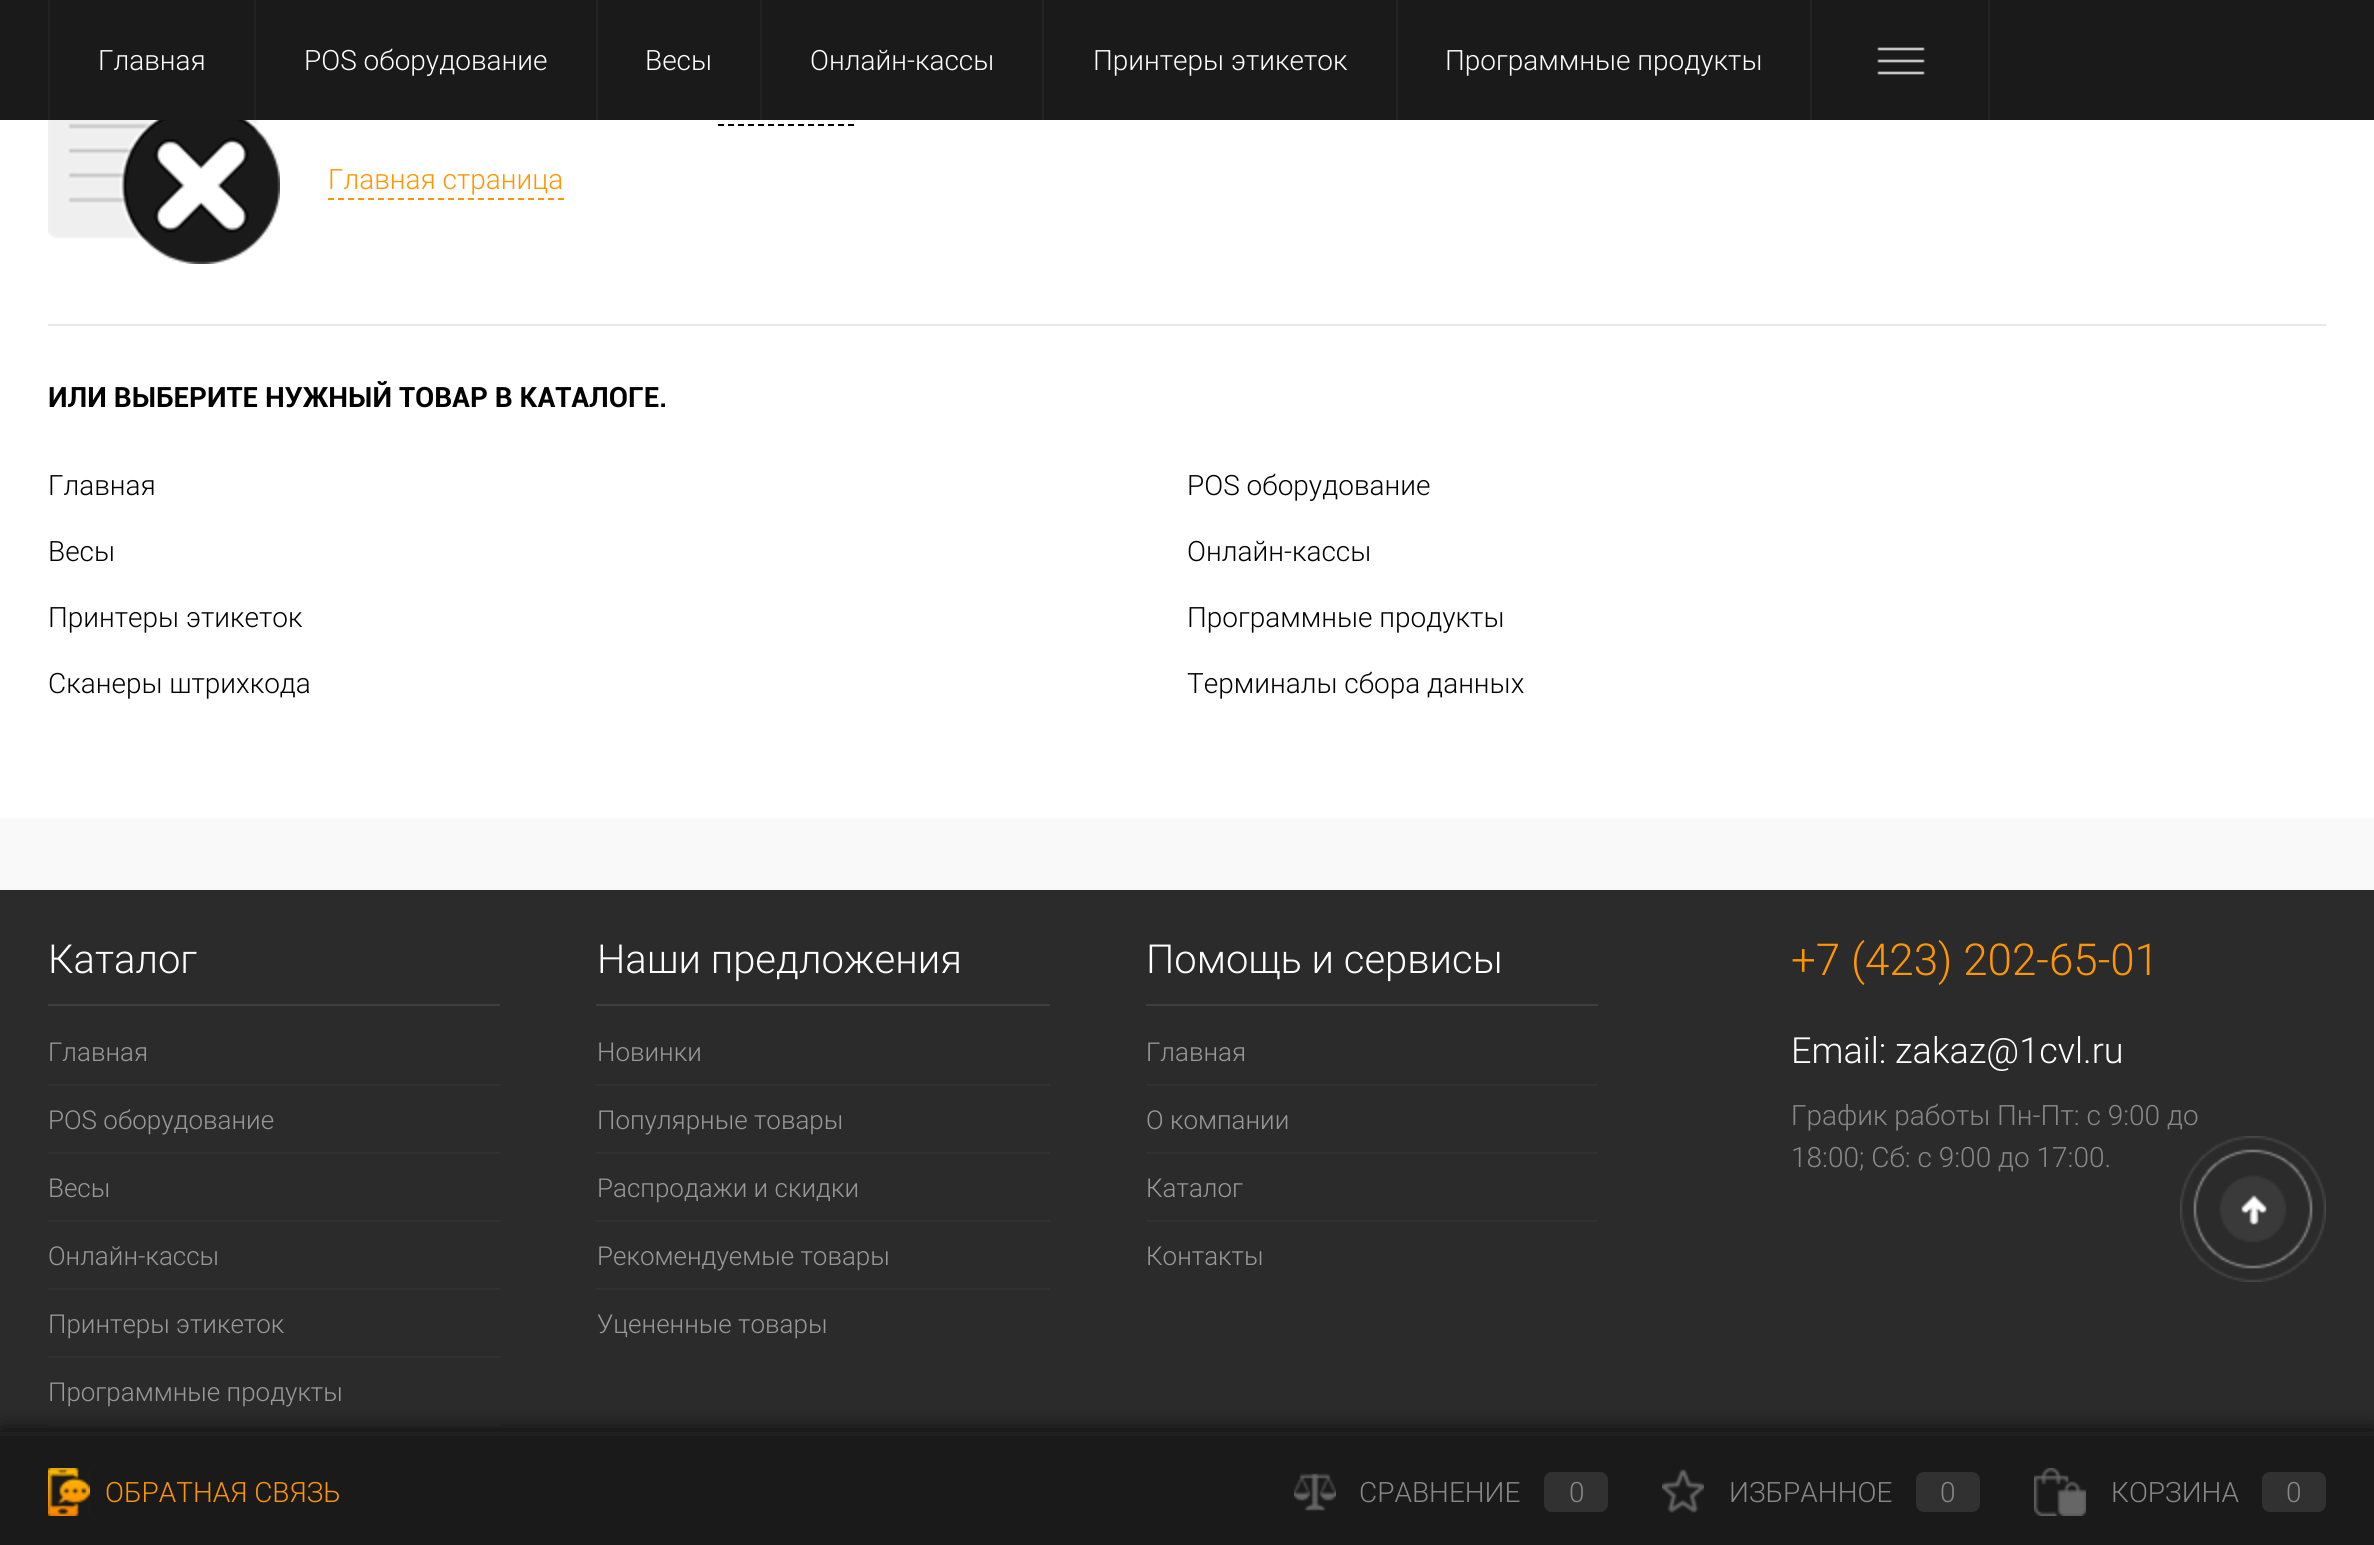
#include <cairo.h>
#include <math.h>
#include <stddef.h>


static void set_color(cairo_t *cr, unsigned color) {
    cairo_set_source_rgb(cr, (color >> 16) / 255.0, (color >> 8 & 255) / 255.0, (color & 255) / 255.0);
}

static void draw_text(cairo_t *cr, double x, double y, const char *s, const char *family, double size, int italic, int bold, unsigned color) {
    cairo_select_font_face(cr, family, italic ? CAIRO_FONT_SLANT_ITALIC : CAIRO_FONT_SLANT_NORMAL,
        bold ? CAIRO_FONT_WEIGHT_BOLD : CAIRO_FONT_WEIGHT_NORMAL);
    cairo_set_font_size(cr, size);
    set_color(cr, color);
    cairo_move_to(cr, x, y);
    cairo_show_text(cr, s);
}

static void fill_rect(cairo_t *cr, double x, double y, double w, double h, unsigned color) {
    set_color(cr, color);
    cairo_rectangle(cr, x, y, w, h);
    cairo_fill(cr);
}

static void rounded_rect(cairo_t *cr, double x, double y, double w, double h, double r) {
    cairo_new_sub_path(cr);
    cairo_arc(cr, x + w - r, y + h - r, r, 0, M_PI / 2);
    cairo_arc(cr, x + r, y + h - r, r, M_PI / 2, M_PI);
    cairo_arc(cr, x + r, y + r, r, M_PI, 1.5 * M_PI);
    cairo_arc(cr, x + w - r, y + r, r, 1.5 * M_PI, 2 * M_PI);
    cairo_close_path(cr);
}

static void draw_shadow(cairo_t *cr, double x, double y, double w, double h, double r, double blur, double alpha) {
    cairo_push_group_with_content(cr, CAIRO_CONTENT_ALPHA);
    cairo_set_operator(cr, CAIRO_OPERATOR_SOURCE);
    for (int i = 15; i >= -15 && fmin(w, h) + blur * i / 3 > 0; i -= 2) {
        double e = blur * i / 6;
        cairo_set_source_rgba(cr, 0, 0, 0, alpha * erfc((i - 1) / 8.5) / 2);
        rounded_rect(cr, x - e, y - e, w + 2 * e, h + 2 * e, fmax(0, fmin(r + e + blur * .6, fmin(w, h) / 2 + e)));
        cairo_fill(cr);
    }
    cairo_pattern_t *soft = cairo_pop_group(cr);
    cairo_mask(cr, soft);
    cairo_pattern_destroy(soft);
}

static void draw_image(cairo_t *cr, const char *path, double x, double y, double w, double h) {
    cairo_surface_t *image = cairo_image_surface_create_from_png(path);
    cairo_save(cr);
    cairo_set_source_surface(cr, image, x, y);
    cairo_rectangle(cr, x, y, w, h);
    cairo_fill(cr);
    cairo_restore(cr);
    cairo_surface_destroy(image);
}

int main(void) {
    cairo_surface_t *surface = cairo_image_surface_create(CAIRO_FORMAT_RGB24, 2374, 1545);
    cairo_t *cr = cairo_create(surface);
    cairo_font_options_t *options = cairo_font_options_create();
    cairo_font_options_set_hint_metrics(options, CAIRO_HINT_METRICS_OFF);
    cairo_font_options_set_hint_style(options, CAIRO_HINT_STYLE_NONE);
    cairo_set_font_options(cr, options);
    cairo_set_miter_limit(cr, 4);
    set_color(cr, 0xFFFFFF);
    cairo_paint(cr);
    fill_rect(cr, 0, 0, 2374, 120, 0x1A1A1A);
    fill_rect(cr, 254, 0, 2, 120, 0x222222);
    fill_rect(cr, 48, 0, 2, 120, 0x222222);
    draw_text(cr, 98, 70, "Главная", "Roboto Light", 28, 0, 0, 0xFFFFFF);
    fill_rect(cr, 596, 0, 2, 120, 0x222222);
    draw_text(cr, 304, 70, "POS оборудование", "Roboto Light", 28, 0, 0, 0xFFFFFF);
    fill_rect(cr, 760, 0, 2, 120, 0x222222);
    draw_text(cr, 645, 70, "Весы", "Roboto Light", 28, 0, 0, 0xFFFFFF);
    fill_rect(cr, 1042, 0, 2, 120, 0x222222);
    draw_text(cr, 810, 70, "Онлайн-кассы", "Roboto Light", 28, 0, 0, 0xFFFFFF);
    fill_rect(cr, 1396, 0, 2, 120, 0x222222);
    draw_text(cr, 1093, 70, "Принтеры этикеток", "Roboto Light", 28, 0, 0, 0xFFFFFF);
    fill_rect(cr, 1810, 0, 2, 120, 0x222222);
    draw_text(cr, 1445, 70, "Программные продукты", "Roboto Light", 28, 0, 0, 0xFFFFFF);
    fill_rect(cr, 1988, 0, 2, 120, 0x222222);
    draw_image(cr, "assets/img1.png", 1877, 47, 48, 28);
    fill_rect(cr, 48, 324, 2278, 2, 0xE7E8EA);
    draw_image(cr, "assets/img2.png", 48, 120, 232, 144);
    cairo_new_path(cr);
    cairo_move_to(cr, 718, 125);
    cairo_line_to(cr, 854, 125);
    set_color(cr, 0x000000);
    cairo_set_dash(cr, (double[]){6, 4}, 2, 0);
    cairo_stroke(cr);
    draw_text(cr, 328, 189, "Главная страница", "Roboto Light", 28, 0, 0, 0xFF9601);
    cairo_new_path(cr);
    cairo_move_to(cr, 328, 199);
    cairo_line_to(cr, 564, 199);
    cairo_stroke(cr);
    draw_text(cr, 48, 407, "ИЛИ ВЫБЕРИТЕ НУЖНЫЙ ТОВАР В КАТАЛОГЕ.", "Roboto", 28, 0, 1, 0x000000);
    draw_text(cr, 48, 495, "Главная", "Roboto Light", 28, 0, 0, 0x000000);
    draw_text(cr, 1187, 495, "POS оборудование", "Roboto Light", 28, 0, 0, 0x000000);
    draw_text(cr, 48, 561, "Весы", "Roboto Light", 28, 0, 0, 0x000000);
    draw_text(cr, 1187, 561, "Онлайн-кассы", "Roboto Light", 28, 0, 0, 0x000000);
    draw_text(cr, 48, 627, "Принтеры этикеток", "Roboto Light", 28, 0, 0, 0x000000);
    draw_text(cr, 1187, 627, "Программные продукты", "Roboto Light", 28, 0, 0, 0x000000);
    draw_text(cr, 48, 693, "Сканеры штрихкода", "Roboto Light", 28, 0, 0, 0x000000);
    draw_text(cr, 1187, 693, "Терминалы сбора данных", "Roboto Light", 28, 0, 0, 0x000000);
    fill_rect(cr, 0, 818, 2374, 72, 0xF9F9F9);
    fill_rect(cr, 0, 890, 2374, 542, 0x2B2B2B);
    fill_rect(cr, 48, 1004, 452, 2, 0x3E3E3E);
    draw_text(cr, 48, 973, "Каталог", "Roboto Light", 40, 0, 0, 0xFFFFFF);
    draw_text(cr, 48, 1061, "Главная", "Roboto Light", 26, 0, 0, 0x999999);
    fill_rect(cr, 48, 1084, 452, 2, 0x313131);
    draw_text(cr, 48, 1129, "POS оборудование", "Roboto Light", 26, 0, 0, 0x999999);
    fill_rect(cr, 48, 1152, 452, 2, 0x313131);
    draw_text(cr, 48, 1197, "Весы", "Roboto Light", 26, 0, 0, 0x999999);
    fill_rect(cr, 48, 1220, 452, 2, 0x313131);
    draw_text(cr, 48, 1265, "Онлайн-кассы", "Roboto Light", 26, 0, 0, 0x999999);
    fill_rect(cr, 48, 1288, 452, 2, 0x313131);
    draw_text(cr, 48, 1333, "Принтеры этикеток", "Roboto Light", 26, 0, 0, 0x999999);
    fill_rect(cr, 48, 1356, 452, 2, 0x313131);
    draw_text(cr, 48, 1401, "Программные продукты", "Roboto Light", 26, 0, 0, 0x999999);
    fill_rect(cr, 48, 1424, 452, 2, 0x313131);
    fill_rect(cr, 596, 1004, 454, 2, 0x3E3E3E);
    draw_text(cr, 597, 973, "Наши предложения", "Roboto Light", 40, 0, 0, 0xFFFFFF);
    draw_text(cr, 597, 1061, "Новинки", "Roboto Light", 26, 0, 0, 0x999999);
    fill_rect(cr, 596, 1084, 454, 2, 0x313131);
    draw_text(cr, 597, 1129, "Популярные товары", "Roboto Light", 26, 0, 0, 0x999999);
    fill_rect(cr, 596, 1152, 454, 2, 0x313131);
    draw_text(cr, 597, 1197, "Распродажи и скидки", "Roboto Light", 26, 0, 0, 0x999999);
    fill_rect(cr, 596, 1220, 454, 2, 0x313131);
    draw_text(cr, 597, 1265, "Рекомендуемые товары", "Roboto Light", 26, 0, 0, 0x999999);
    fill_rect(cr, 596, 1288, 454, 2, 0x313131);
    draw_text(cr, 597, 1333, "Уцененные товары", "Roboto Light", 26, 0, 0, 0x999999);
    fill_rect(cr, 1146, 1004, 452, 2, 0x3E3E3E);
    draw_text(cr, 1146, 973, "Помощь и сервисы", "Roboto Light", 40, 0, 0, 0xFFFFFF);
    draw_text(cr, 1146, 1061, "Главная", "Roboto Light", 26, 0, 0, 0x999999);
    fill_rect(cr, 1146, 1084, 452, 2, 0x313131);
    draw_text(cr, 1146, 1129, "О компании", "Roboto Light", 26, 0, 0, 0x999999);
    fill_rect(cr, 1146, 1152, 452, 2, 0x313131);
    draw_text(cr, 1146, 1197, "Каталог", "Roboto Light", 26, 0, 0, 0x999999);
    fill_rect(cr, 1146, 1220, 452, 2, 0x313131);
    draw_text(cr, 1146, 1265, "Контакты", "Roboto Light", 26, 0, 0, 0x999999);
    draw_text(cr, 1791, 975, "+7 (423) 202-65-01", "Roboto Light", 44, 0, 0, 0xFF9601);
    draw_text(cr, 1791, 1063, "Email: zakaz@1cvl.ru", "Roboto Light", 36, 0, 0, 0xFFFFFF);
    draw_text(cr, 1791, 1125, "График работы Пн-Пт: с 9:00 до", "Roboto Light", 28, 0, 0, 0x888888);
    draw_text(cr, 1791, 1167, "18:00; Сб: с 9:00 до 17:00.", "Roboto Light", 28, 0, 0, 0x888888);
    set_color(cr, 0x000000);
    draw_shadow(cr, 2, 1434, 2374, 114, 0, 12, 1);
    fill_rect(cr, 0, 1436, 2374, 109, 0x1A1A1A);
    fill_rect(cr, 0, 1432, 2374, 4, 0x202020);
    draw_image(cr, "assets/img3.png", 48, 1468, 42, 48);
    draw_text(cr, 105, 1502, "ОБРАТНАЯ СВЯЗЬ", "Roboto Light", 28, 0, 0, 0xFF9601);
    draw_image(cr, "assets/img4.png", 1294, 1473, 42, 38);
    draw_text(cr, 1359, 1502, "СРАВНЕНИЕ", "Roboto Light", 28, 0, 0, 0x888888);
    set_color(cr, 0x313131);
    rounded_rect(cr, 1544, 1472, 64, 40, 8);
    cairo_fill(cr);
    draw_text(cr, 1569, 1502, "0", "Roboto Light", 28, 0, 0, 0x888888);
    draw_image(cr, "assets/img5.png", 1662, 1469, 42, 44);
    draw_text(cr, 1729, 1502, "ИЗБРАННОЕ", "Roboto Light", 28, 0, 0, 0x888888);
    set_color(cr, 0x313131);
    rounded_rect(cr, 1916, 1472, 64, 40, 8);
    cairo_fill(cr);
    draw_text(cr, 1940, 1502, "0", "Roboto Light", 28, 0, 0, 0x888888);
    draw_image(cr, "assets/img6.png", 2034, 1468, 52, 48);
    draw_text(cr, 2111, 1502, "КОРЗИНА", "Roboto Light", 28, 0, 0, 0x888888);
    set_color(cr, 0x313131);
    rounded_rect(cr, 2262, 1472, 64, 40, 8);
    cairo_fill(cr);
    draw_text(cr, 2286, 1502, "0", "Roboto Light", 28, 0, 0, 0x888888);
    draw_image(cr, "assets/img7.png", 2180, 1136, 146, 146);
    cairo_surface_write_to_png(surface, "output.png");
    cairo_font_options_destroy(options);
    cairo_destroy(cr);
    cairo_surface_destroy(surface);
    return 0;
}
